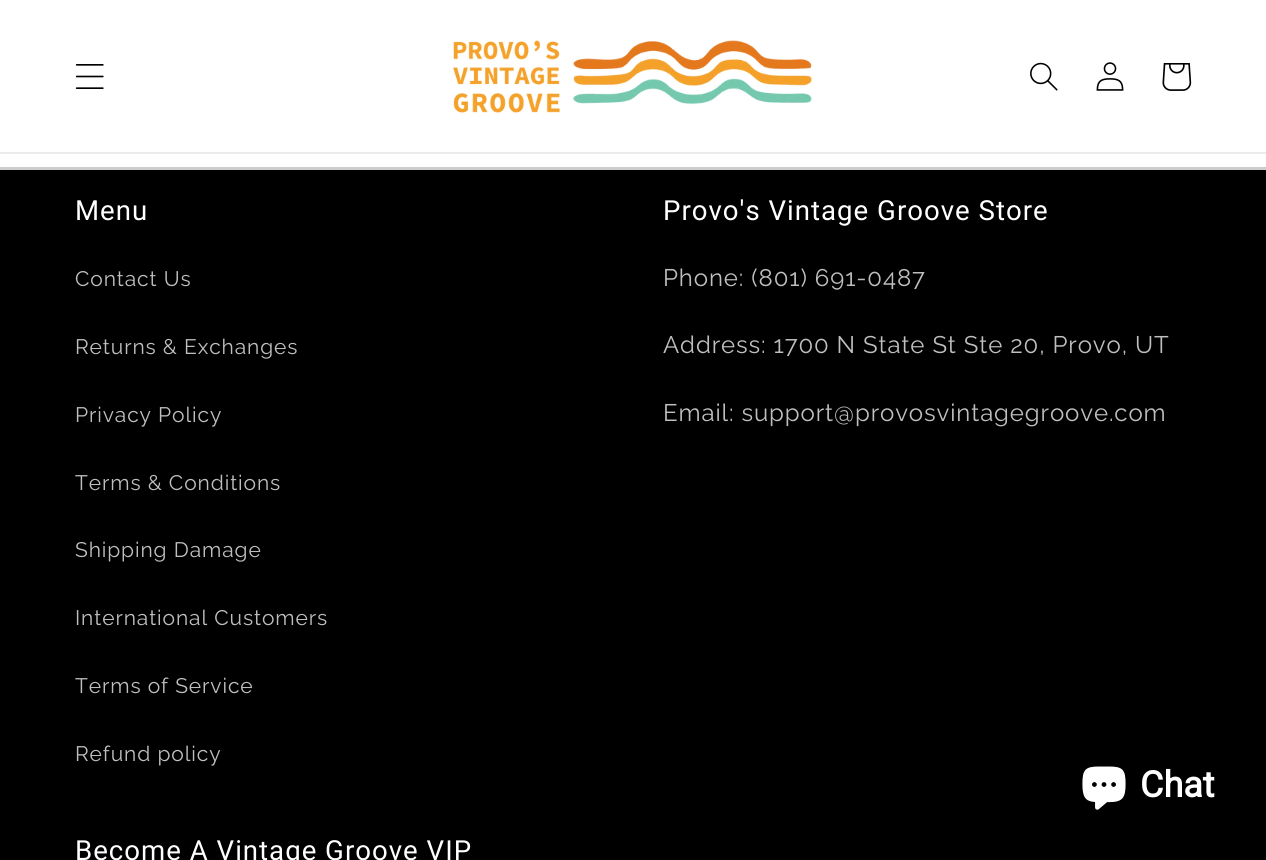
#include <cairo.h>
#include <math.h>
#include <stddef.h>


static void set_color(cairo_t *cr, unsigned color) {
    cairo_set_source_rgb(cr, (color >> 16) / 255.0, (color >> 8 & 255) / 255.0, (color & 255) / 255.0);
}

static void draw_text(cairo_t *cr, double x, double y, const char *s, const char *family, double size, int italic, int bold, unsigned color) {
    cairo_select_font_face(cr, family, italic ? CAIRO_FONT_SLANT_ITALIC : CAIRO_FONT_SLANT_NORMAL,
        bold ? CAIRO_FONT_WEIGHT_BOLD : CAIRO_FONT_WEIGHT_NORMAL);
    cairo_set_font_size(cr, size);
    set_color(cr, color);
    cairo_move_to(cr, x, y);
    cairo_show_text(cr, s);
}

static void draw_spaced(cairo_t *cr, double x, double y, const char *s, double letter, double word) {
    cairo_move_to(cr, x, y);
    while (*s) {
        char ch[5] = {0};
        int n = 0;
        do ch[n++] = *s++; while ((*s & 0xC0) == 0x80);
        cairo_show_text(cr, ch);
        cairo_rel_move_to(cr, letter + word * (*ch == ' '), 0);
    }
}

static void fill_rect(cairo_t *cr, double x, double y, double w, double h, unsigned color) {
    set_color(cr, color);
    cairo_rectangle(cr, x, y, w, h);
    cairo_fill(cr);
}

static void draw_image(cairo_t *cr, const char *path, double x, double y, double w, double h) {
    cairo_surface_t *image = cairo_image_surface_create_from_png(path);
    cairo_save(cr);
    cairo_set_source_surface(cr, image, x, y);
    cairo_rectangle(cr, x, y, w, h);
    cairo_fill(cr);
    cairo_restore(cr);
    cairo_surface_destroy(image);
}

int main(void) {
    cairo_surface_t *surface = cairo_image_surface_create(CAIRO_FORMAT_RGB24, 1266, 860);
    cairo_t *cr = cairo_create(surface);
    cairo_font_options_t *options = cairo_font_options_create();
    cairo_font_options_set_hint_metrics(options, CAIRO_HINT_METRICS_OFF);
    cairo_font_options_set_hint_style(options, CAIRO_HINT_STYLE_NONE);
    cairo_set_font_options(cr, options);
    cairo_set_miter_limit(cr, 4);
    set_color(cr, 0xFFFFFF);
    cairo_paint(cr);
    fill_rect(cr, 0, 152, 1266, 2, 0xEBEBEB);
    draw_image(cr, "assets/img1.png", 75, 64, 29, 25);
    draw_image(cr, "assets/img2.png", 453, 40, 359, 73);
    draw_image(cr, "assets/img3.png", 1030, 62, 28, 29);
    draw_image(cr, "assets/img4.png", 1096, 62, 28, 29);
    draw_image(cr, "assets/img5.png", 1162, 63, 30, 28);
    fill_rect(cr, 0, 167, 1266, 3, 0xCCCCCC);
    fill_rect(cr, 0, 170, 1266, 690, 0x000000);
    cairo_select_font_face(cr, "Roboto", CAIRO_FONT_SLANT_NORMAL, CAIRO_FONT_WEIGHT_NORMAL);
    cairo_set_font_size(cr, 27.6);
    set_color(cr, 0xFFFFFF);
    draw_spaced(cr, 75, 220, "Menu", 1, 0);
    cairo_select_font_face(cr, "Raleway", CAIRO_FONT_SLANT_NORMAL, CAIRO_FONT_WEIGHT_NORMAL);
    cairo_set_font_size(cr, 21);
    set_color(cr, 0xBFBFBF);
    draw_spaced(cr, 75, 286, "Contact Us", 0.9, 0);
    draw_spaced(cr, 75, 354, "Returns & Exchanges", 0.9, 0);
    draw_spaced(cr, 75, 422, "Privacy Policy", 0.9, 0);
    draw_spaced(cr, 75, 490, "Terms & Conditions", 0.9, 0);
    draw_spaced(cr, 75, 557, "Shipping Damage", 0.9, 0);
    draw_spaced(cr, 75, 625, "International Customers", 0.9, 0);
    draw_spaced(cr, 75, 693, "Terms of Service", 0.9, 0);
    draw_spaced(cr, 75, 761, "Refund policy", 0.9, 0);
    cairo_select_font_face(cr, "Roboto", CAIRO_FONT_SLANT_NORMAL, CAIRO_FONT_WEIGHT_NORMAL);
    cairo_set_font_size(cr, 27.6);
    set_color(cr, 0xFFFFFF);
    draw_spaced(cr, 663, 220, "Provo's Vintage Groove Store", 1, 0);
    cairo_select_font_face(cr, "Raleway", CAIRO_FONT_SLANT_NORMAL, CAIRO_FONT_WEIGHT_NORMAL);
    cairo_set_font_size(cr, 24);
    set_color(cr, 0xBFBFBF);
    draw_spaced(cr, 663, 286, "Phone: (801) 691-0487", 0.9, 0);
    draw_spaced(cr, 663, 353, "Address: 1700 N State St Ste 20, Provo, UT", 0.9, 0);
    draw_spaced(cr, 663, 421, "Email: support@provosvintagegroove.com", 0.9, 0);
    cairo_select_font_face(cr, "Roboto", CAIRO_FONT_SLANT_NORMAL, CAIRO_FONT_WEIGHT_NORMAL);
    cairo_set_font_size(cr, 27.6);
    set_color(cr, 0xFFFFFF);
    draw_spaced(cr, 75, 860, "Become A Vintage Groove VIP", 1, 0);
    draw_image(cr, "assets/img6.png", 1082, 766, 44, 44);
    draw_text(cr, 1140, 797, "Chat", "Roboto", 36, 0, 1, 0xFFFFFF);
    cairo_surface_write_to_png(surface, "output.png");
    cairo_font_options_destroy(options);
    cairo_destroy(cr);
    cairo_surface_destroy(surface);
    return 0;
}
